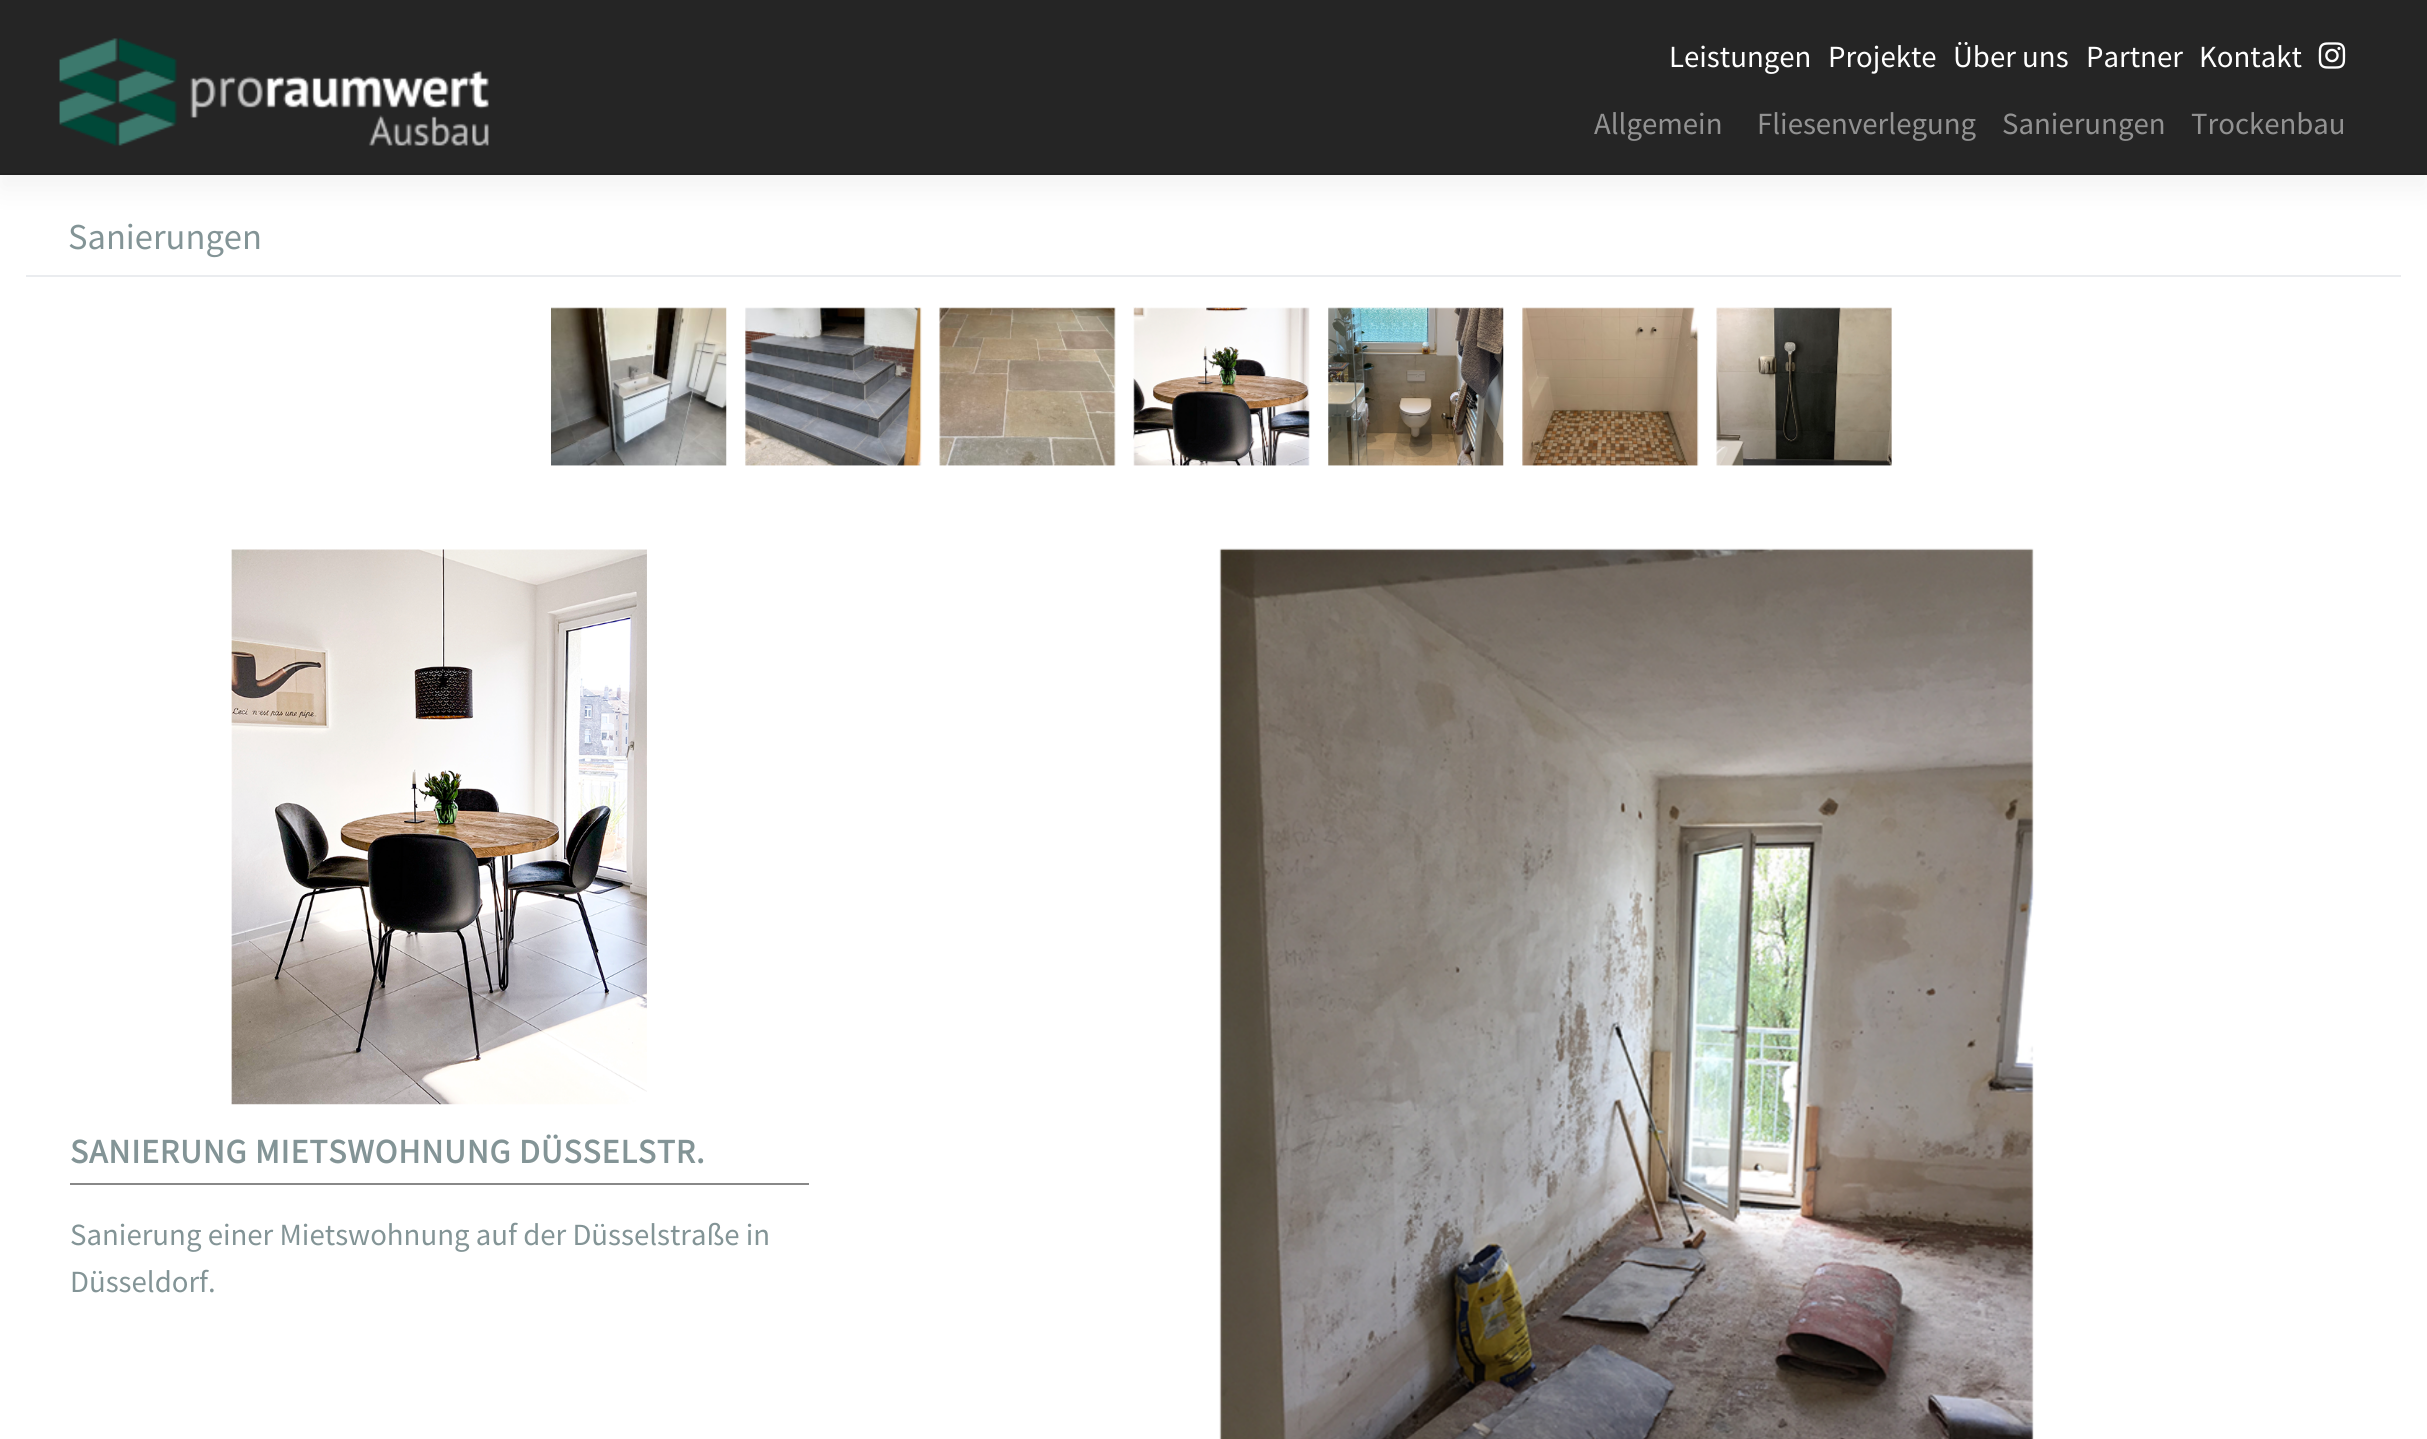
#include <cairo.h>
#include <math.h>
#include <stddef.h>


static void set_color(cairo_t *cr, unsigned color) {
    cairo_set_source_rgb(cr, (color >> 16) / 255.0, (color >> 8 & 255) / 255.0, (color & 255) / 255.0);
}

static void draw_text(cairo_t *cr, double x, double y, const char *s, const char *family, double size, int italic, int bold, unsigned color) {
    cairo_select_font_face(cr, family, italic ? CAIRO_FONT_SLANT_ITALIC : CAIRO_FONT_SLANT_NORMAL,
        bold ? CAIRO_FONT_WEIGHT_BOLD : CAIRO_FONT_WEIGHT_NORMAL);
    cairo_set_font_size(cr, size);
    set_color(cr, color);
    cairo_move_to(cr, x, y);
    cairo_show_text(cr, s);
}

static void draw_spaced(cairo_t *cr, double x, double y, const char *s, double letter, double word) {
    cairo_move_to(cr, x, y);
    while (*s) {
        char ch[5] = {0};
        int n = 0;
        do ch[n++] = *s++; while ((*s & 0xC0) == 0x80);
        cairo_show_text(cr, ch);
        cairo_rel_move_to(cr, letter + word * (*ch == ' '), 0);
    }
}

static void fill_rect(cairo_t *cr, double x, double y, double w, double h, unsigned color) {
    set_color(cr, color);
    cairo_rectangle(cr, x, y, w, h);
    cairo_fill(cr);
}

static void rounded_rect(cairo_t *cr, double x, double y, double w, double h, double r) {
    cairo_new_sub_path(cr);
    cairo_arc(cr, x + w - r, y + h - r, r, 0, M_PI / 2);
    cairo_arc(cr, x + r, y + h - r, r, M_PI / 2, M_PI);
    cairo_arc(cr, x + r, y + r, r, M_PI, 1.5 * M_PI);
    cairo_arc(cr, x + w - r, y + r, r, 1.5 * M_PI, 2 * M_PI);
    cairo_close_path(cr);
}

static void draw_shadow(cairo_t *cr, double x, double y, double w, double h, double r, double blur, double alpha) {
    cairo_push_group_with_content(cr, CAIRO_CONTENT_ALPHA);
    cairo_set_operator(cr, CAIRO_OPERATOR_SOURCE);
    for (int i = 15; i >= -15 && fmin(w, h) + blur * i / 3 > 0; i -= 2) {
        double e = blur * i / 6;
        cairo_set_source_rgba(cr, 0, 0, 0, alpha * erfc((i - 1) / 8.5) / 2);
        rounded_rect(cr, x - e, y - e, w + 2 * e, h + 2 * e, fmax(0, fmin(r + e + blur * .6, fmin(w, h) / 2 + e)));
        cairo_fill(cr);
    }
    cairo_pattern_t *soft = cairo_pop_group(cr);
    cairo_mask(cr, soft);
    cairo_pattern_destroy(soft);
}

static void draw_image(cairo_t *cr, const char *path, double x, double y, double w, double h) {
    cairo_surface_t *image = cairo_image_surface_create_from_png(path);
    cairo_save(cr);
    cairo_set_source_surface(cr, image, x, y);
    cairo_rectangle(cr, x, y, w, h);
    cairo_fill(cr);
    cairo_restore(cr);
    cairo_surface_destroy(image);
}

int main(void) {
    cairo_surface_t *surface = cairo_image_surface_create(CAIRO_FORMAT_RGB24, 2427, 1439);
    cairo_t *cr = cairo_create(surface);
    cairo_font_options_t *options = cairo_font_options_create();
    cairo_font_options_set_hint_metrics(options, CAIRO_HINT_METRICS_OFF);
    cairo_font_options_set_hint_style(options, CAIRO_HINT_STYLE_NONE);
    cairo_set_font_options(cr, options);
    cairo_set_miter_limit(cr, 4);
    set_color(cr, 0xFFFFFF);
    cairo_paint(cr);
    set_color(cr, 0x000000);
    draw_shadow(cr, 0, 14, 2427, 175, 0, 14, 0.05);
    fill_rect(cr, 0, 0, 2427, 173, 0x252525);
    fill_rect(cr, 0, 173, 2427, 2, 0x212121);
    draw_image(cr, "assets/img1.png", 59, 38, 430, 108);
    draw_text(cr, 1669, 67, "Leistungen", "Source Sans Pro", 30.8, 0, 0, 0xFFFFFF);
    draw_text(cr, 1828, 67, "Projekte", "Source Sans Pro", 30.8, 0, 0, 0xFFFFFF);
    draw_text(cr, 1953, 67, "Über uns", "Source Sans Pro", 30.8, 0, 0, 0xFFFFFF);
    draw_text(cr, 2086, 67, "Partner", "Source Sans Pro", 30.8, 0, 0, 0xFFFFFF);
    draw_text(cr, 2199, 67, "Kontakt", "Source Sans Pro", 30.8, 0, 0, 0xFFFFFF);
    draw_image(cr, "assets/img2.png", 2318, 42, 28, 27);
    draw_text(cr, 1594, 134, "Allgemein", "Source Sans Pro", 30.8, 0, 0, 0x929292);
    draw_text(cr, 1757, 134, "Fliesenverlegung", "Source Sans Pro", 30.8, 0, 0, 0x929292);
    draw_text(cr, 2002, 134, "Sanierungen", "Source Sans Pro", 30.8, 0, 0, 0x929292);
    draw_text(cr, 2191, 134, "Trockenbau", "Source Sans Pro", 30.8, 0, 0, 0x929292);
    fill_rect(cr, 26, 275, 2375, 2, 0xEAECEF);
    draw_text(cr, 68, 249, "Sanierungen", "Source Sans Pro", 36.5, 0, 0, 0x839496);
    draw_image(cr, "assets/img3.png", 551, 307, 176, 159);
    draw_image(cr, "assets/img4.png", 745, 307, 177, 159);
    draw_image(cr, "assets/img5.png", 939, 307, 177, 159);
    draw_image(cr, "assets/img6.png", 1133, 307, 177, 159);
    draw_image(cr, "assets/img7.png", 1328, 307, 176, 159);
    draw_image(cr, "assets/img8.png", 1522, 307, 177, 159);
    draw_image(cr, "assets/img9.png", 1716, 307, 176, 159);
    draw_image(cr, "assets/img10.png", 231, 549, 416, 556);
    cairo_select_font_face(cr, "Source Sans Pro", CAIRO_FONT_SLANT_NORMAL, CAIRO_FONT_WEIGHT_BOLD);
    cairo_set_font_size(cr, 33.9);
    draw_spaced(cr, 70, 1163, "SANIERUNG MIETSWOHNUNG DÜSSELSTR.", 0.9, 0);
    fill_rect(cr, 70, 1183, 739, 2, 0x888888);
    draw_text(cr, 70, 1245, "Sanierung einer Mietswohnung auf der Düsselstraße in", "Source Sans Pro", 30.8, 0, 0, 0x839496);
    draw_text(cr, 70, 1292, "Düsseldorf.", "Source Sans Pro", 30.8, 0, 0, 0x839496);
    draw_image(cr, "assets/img11.png", 1219, 548, 815, 891);
    cairo_surface_write_to_png(surface, "output.png");
    cairo_font_options_destroy(options);
    cairo_destroy(cr);
    cairo_surface_destroy(surface);
    return 0;
}
